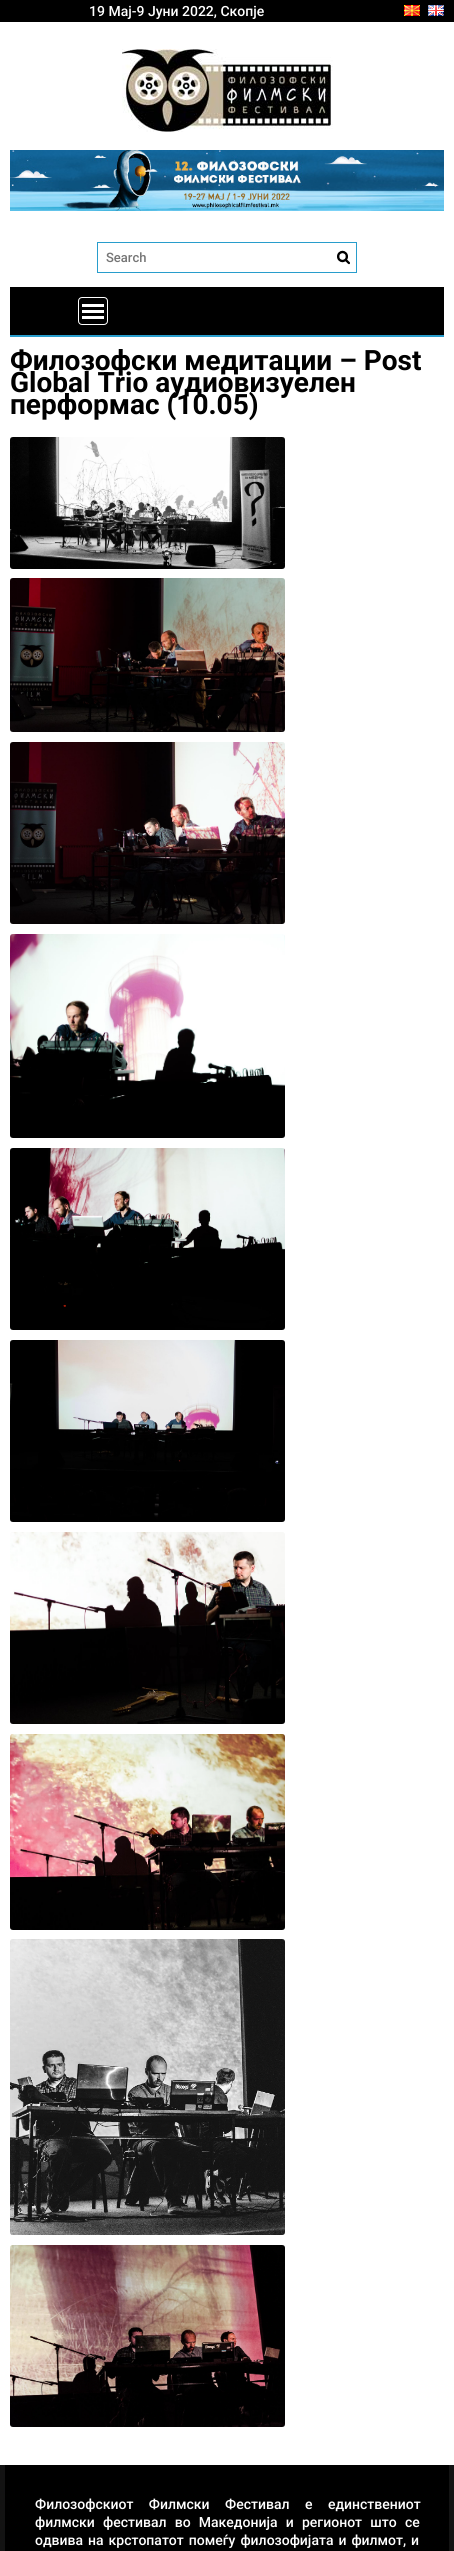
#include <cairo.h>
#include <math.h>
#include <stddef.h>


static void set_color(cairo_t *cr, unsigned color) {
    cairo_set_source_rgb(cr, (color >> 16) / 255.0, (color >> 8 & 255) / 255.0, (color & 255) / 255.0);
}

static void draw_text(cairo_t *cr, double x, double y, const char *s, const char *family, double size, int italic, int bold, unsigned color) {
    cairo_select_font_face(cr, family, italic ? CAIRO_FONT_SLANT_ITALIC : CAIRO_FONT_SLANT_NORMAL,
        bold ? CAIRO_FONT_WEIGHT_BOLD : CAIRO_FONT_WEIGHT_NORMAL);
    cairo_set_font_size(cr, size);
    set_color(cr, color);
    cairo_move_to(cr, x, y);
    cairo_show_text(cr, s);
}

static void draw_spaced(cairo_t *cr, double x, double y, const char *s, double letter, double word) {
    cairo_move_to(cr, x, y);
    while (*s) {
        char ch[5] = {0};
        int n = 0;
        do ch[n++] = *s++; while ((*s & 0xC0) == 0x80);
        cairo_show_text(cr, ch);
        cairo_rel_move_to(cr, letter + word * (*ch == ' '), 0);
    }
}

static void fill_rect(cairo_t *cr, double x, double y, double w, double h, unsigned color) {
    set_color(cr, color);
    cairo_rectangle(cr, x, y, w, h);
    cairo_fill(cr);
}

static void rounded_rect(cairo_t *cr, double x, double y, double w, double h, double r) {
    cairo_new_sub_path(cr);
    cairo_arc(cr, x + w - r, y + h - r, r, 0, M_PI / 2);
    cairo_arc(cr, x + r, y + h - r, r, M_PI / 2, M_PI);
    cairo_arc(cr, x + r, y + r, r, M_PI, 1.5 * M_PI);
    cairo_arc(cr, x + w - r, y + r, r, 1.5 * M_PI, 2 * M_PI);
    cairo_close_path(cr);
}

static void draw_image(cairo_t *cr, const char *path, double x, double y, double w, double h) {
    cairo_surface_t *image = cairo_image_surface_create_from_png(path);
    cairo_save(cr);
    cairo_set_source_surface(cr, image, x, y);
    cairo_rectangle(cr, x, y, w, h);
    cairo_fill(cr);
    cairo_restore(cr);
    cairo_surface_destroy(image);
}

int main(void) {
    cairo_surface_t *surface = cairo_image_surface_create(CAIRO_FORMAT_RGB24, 454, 2551);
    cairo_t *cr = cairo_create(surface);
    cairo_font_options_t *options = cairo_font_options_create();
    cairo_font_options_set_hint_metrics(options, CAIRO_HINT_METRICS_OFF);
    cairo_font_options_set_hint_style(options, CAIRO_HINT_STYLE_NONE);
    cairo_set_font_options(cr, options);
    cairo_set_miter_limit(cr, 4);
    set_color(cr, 0xFFFFFF);
    cairo_paint(cr);
    fill_rect(cr, 0, 0, 454, 22, 0x000000);
    draw_text(cr, 89, 16, "19 Мај-9 Јуни 2022, Скопје", "Roboto Medium", 14, 0, 0, 0xFFFFFF);
    draw_image(cr, "assets/img1.png", 404, 5, 16, 11);
    draw_image(cr, "assets/img2.png", 428, 5, 16, 11);
    draw_image(cr, "assets/img3.png", 122, 49, 211, 83);
    draw_image(cr, "assets/img4.png", 10, 150, 434, 61);
    cairo_rectangle(cr, 97.5, 242.5, 259, 30);
    set_color(cr, 0x289DCC);
    cairo_set_line_width(cr, 1);
    cairo_stroke(cr);
    draw_text(cr, 106, 262, "Search", "Roboto Medium", 13, 0, 0, 0x757575);
    draw_image(cr, "assets/img5.png", 337, 250, 13, 15);
    fill_rect(cr, 10, 287, 434, 48, 0x000000);
    fill_rect(cr, 10, 335, 434, 2, 0x289DCC);
    rounded_rect(cr, 78.5, 297.5, 29, 27, 3.5);
    set_color(cr, 0xFFFFFF);
    cairo_stroke(cr);
    fill_rect(cr, 82, 316, 22, 3, 0xFFFFFF);
    fill_rect(cr, 82, 310, 22, 3, 0xFFFFFF);
    fill_rect(cr, 82, 304, 22, 3, 0xFFFFFF);
    draw_text(cr, 10, 370, "Филозофски медитации – Post", "Roboto", 28, 0, 1, 0x000000);
    draw_text(cr, 10, 392, "Global Trio аудиовизуелен", "Roboto", 28, 0, 1, 0x000000);
    draw_text(cr, 10, 414, "перформас (10.05)", "Roboto", 28, 0, 1, 0x000000);
    draw_image(cr, "assets/img6.png", 10, 437, 275, 132);
    draw_image(cr, "assets/img7.png", 10, 578, 275, 154);
    draw_image(cr, "assets/img8.png", 10, 742, 275, 182);
    draw_image(cr, "assets/img9.png", 10, 934, 275, 204);
    draw_image(cr, "assets/img10.png", 10, 1148, 275, 182);
    draw_image(cr, "assets/img11.png", 10, 1340, 275, 182);
    draw_image(cr, "assets/img12.png", 10, 1532, 275, 192);
    draw_image(cr, "assets/img13.png", 10, 1734, 275, 196);
    draw_image(cr, "assets/img14.png", 10, 1939, 275, 296);
    draw_image(cr, "assets/img15.png", 10, 2245, 275, 182);
    fill_rect(cr, 0, 2465, 454, 86, 0x131313);
    fill_rect(cr, 5, 2465, 444, 86, 0x000000);
    cairo_select_font_face(cr, "Roboto Medium", CAIRO_FONT_SLANT_NORMAL, CAIRO_FONT_WEIGHT_NORMAL);
    cairo_set_font_size(cr, 14);
    set_color(cr, 0xFFFFFF);
    draw_spaced(cr, 35, 2509, "Филозофскиот Филмски Фестивал е единствениот", 0, 12);
    draw_spaced(cr, 35, 2527, "филмски фестивал во Македонија и регионот што се", 0, 4.75);
    draw_spaced(cr, 35, 2545, "одвива на крстопатот помеѓу филозофијата и филмот,", 0, 1.5);
    draw_text(cr, 411, 2545, "и", "Roboto Medium", 14, 0, 0, 0xFFFFFF);
    cairo_surface_write_to_png(surface, "output.png");
    cairo_font_options_destroy(options);
    cairo_destroy(cr);
    cairo_surface_destroy(surface);
    return 0;
}
